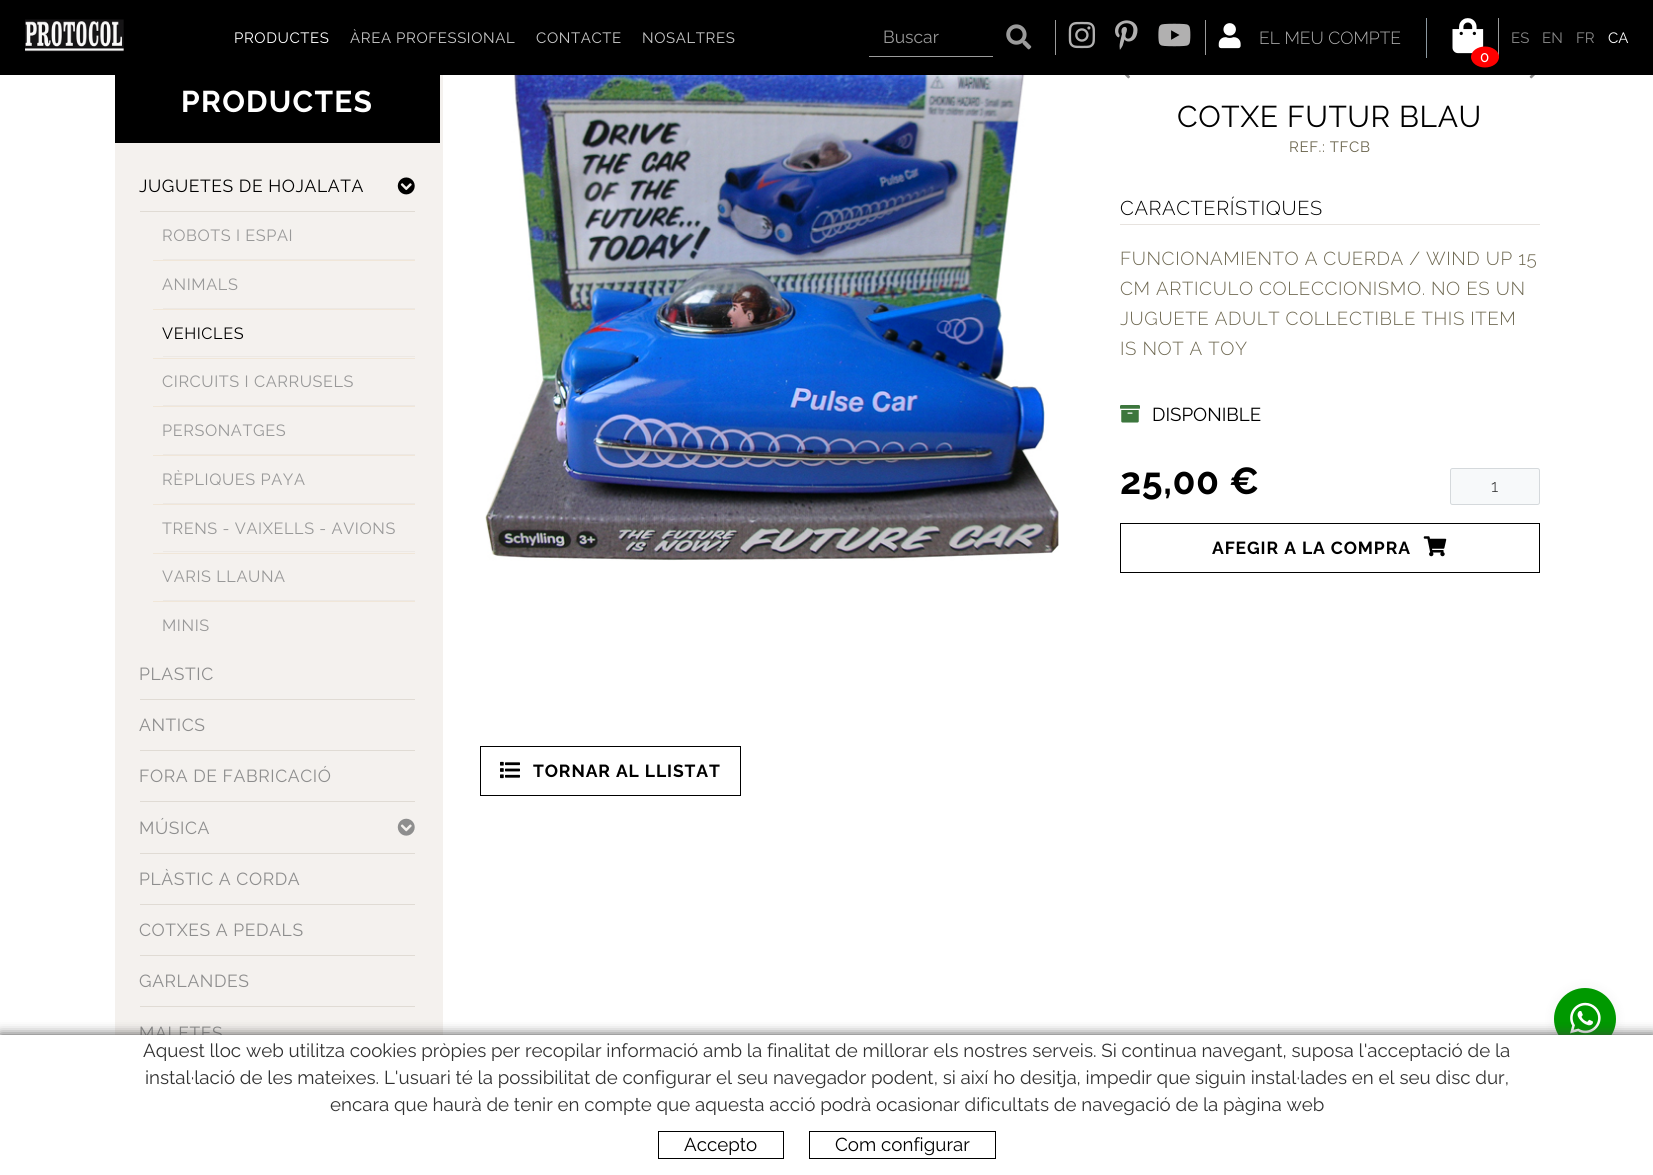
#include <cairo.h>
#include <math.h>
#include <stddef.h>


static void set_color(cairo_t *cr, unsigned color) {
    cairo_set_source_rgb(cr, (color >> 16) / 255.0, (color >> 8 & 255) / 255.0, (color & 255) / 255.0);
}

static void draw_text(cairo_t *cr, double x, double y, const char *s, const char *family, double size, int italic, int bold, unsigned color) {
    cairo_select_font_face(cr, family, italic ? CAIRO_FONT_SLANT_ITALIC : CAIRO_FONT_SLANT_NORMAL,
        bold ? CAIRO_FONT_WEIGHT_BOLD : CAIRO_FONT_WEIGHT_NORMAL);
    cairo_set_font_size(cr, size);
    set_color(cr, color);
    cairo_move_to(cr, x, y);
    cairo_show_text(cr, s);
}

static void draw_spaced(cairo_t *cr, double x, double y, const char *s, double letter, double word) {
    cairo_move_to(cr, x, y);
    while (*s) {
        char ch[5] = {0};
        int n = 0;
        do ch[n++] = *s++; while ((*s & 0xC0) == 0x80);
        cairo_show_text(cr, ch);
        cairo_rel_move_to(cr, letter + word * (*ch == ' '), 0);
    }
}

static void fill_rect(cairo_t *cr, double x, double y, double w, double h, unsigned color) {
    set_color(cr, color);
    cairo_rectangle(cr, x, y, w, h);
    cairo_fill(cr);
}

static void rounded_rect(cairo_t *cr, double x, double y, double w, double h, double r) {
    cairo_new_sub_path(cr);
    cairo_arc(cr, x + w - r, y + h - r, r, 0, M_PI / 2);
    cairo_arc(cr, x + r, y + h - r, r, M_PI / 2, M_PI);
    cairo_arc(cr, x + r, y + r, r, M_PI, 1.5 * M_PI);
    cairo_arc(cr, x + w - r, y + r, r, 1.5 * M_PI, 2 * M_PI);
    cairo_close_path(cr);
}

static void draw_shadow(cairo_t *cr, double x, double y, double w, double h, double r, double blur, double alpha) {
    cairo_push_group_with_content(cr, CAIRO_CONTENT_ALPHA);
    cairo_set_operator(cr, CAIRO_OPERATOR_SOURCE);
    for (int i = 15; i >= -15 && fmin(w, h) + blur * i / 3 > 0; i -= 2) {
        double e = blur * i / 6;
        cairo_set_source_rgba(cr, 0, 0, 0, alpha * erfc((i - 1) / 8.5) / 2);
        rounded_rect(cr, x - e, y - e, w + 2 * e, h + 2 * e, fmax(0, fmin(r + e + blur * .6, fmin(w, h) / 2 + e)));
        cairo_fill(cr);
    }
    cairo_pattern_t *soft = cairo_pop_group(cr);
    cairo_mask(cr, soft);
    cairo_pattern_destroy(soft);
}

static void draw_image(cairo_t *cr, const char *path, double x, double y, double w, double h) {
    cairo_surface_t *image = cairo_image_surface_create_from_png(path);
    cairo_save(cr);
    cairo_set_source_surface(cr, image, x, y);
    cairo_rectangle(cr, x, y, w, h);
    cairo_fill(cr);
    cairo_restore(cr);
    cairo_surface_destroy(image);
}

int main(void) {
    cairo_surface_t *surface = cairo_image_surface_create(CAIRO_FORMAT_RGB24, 1653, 1175);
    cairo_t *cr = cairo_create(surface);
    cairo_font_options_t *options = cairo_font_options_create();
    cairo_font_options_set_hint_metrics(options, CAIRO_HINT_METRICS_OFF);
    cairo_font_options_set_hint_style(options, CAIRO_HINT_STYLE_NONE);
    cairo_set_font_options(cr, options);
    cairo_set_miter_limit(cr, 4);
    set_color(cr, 0xFFFFFF);
    cairo_paint(cr);
    fill_rect(cr, 0, 0, 1653, 75, 0x000000);
    draw_image(cr, "assets/img1.png", 25, 19, 99, 33);
    cairo_select_font_face(cr, "Raleway", CAIRO_FONT_SLANT_NORMAL, CAIRO_FONT_WEIGHT_NORMAL);
    cairo_set_font_size(cr, 15);
    set_color(cr, 0xFFFFFF);
    draw_spaced(cr, 234, 43, "PRODUCTES", 0.6, 0);
    set_color(cr, 0xC7C7C7);
    draw_spaced(cr, 350, 43, "ÀREA PROFESSIONAL", 0.6, 0);
    draw_spaced(cr, 536, 43, "CONTACTE", 0.6, 0);
    draw_spaced(cr, 642, 43, "NOSALTRES", 0.6, 0);
    fill_rect(cr, 869, 56, 124, 1, 0x9B9B9B);
    draw_text(cr, 883, 43, "Buscar", "Raleway", 17.5, 0, 0, 0x999999);
    draw_image(cr, "assets/img2.png", 1006, 24, 26, 26);
    fill_rect(cr, 1205, 20, 1, 35, 0x9B9B9B);
    fill_rect(cr, 1055, 20, 1, 35, 0x9B9B9B);
    draw_image(cr, "assets/img3.png", 1068, 21, 27, 28);
    draw_image(cr, "assets/img4.png", 1115, 20, 23, 30);
    draw_image(cr, "assets/img5.png", 1158, 23, 33, 24);
    fill_rect(cr, 1426, 18, 1, 40, 0x8B989F);
    draw_image(cr, "assets/img6.png", 1218, 23, 23, 26);
    draw_text(cr, 1259, 44, "EL MEU COMPTE", "Raleway Light", 17.5, 0, 0, 0xB0B0B0);
    fill_rect(cr, 1498, 18, 1, 40, 0x9B9B9B);
    draw_text(cr, 1511, 43, "ES", "Raleway", 15, 0, 0, 0x888888);
    draw_text(cr, 1542, 43, "EN", "Raleway", 15, 0, 0, 0x888888);
    draw_text(cr, 1576, 43, "FR", "Raleway", 15, 0, 0, 0x888888);
    draw_text(cr, 1608, 43, "CA", "Raleway", 15, 0, 0, 0xFFFFFF);
    draw_image(cr, "assets/img7.png", 1452, 18, 32, 36);
    set_color(cr, 0xFF0000);
    cairo_new_path(cr);
    cairo_move_to(cr, 1485, 46.5);
    cairo_curve_to(cr, 1492.5, 46.5, 1499, 51, 1499, 57);
    cairo_curve_to(cr, 1499, 63, 1492.5, 67.5, 1485, 67.5);
    cairo_curve_to(cr, 1477.5, 67.5, 1471, 63, 1471, 57);
    cairo_curve_to(cr, 1471, 51, 1477.5, 46.5, 1485, 46.5);
    cairo_close_path(cr);
    cairo_fill(cr);
    draw_text(cr, 1480, 62, "0", "Raleway Medium", 15, 0, 0, 0xFFFFFF);
    fill_rect(cr, 115, 75, 328, 960, 0xF4F1EE);
    fill_rect(cr, 115, 75, 325, 68, 0x000000);
    cairo_select_font_face(cr, "Raleway", CAIRO_FONT_SLANT_NORMAL, CAIRO_FONT_WEIGHT_BOLD);
    cairo_set_font_size(cr, 30);
    set_color(cr, 0xFFFFFF);
    draw_spaced(cr, 181, 112, "PRODUCTES", 1.25, 0);
    fill_rect(cr, 140, 211, 275, 1, 0xE0DBD4);
    cairo_select_font_face(cr, "Raleway", CAIRO_FONT_SLANT_NORMAL, CAIRO_FONT_WEIGHT_NORMAL);
    cairo_set_font_size(cr, 17.5);
    set_color(cr, 0x000000);
    draw_spaced(cr, 139, 192, "JUGUETES DE HOJALATA", 0.6, 0);
    draw_image(cr, "assets/img8.png", 397, 177, 18, 18);
    fill_rect(cr, 153, 260, 262, 1, 0xF0E6D8);
    fill_rect(cr, 163, 259, 252, 1, 0xECE8E4);
    cairo_set_font_size(cr, 16.25);
    set_color(cr, 0x999999);
    draw_spaced(cr, 162, 241, "ROBOTS I ESPAI", 0.6, 0);
    fill_rect(cr, 153, 309, 262, 1, 0xF0E6D8);
    fill_rect(cr, 163, 308, 252, 1, 0xECE8E4);
    set_color(cr, 0x999999);
    draw_spaced(cr, 162, 290, "ANIMALS", 0.6, 0);
    fill_rect(cr, 153, 358, 262, 1, 0xF0E6D8);
    fill_rect(cr, 163, 356, 252, 1, 0xECE8E4);
    set_color(cr, 0x000000);
    draw_spaced(cr, 162, 339, "VEHICLES", 0.6, 0);
    fill_rect(cr, 153, 406, 262, 1, 0xF0E6D8);
    fill_rect(cr, 163, 405, 252, 1, 0xECE8E4);
    set_color(cr, 0x999999);
    draw_spaced(cr, 162, 387, "CIRCUITS I CARRUSELS", 0.6, 0);
    fill_rect(cr, 153, 455, 262, 1, 0xF0E6D8);
    fill_rect(cr, 163, 454, 252, 1, 0xECE8E4);
    set_color(cr, 0x999999);
    draw_spaced(cr, 162, 436, "PERSONATGES", 0.6, 0);
    fill_rect(cr, 153, 504, 262, 1, 0xF0E6D8);
    fill_rect(cr, 163, 503, 252, 1, 0xECE8E4);
    set_color(cr, 0x999999);
    draw_spaced(cr, 162, 485, "RÈPLIQUES PAYA", 0.6, 0);
    fill_rect(cr, 153, 553, 262, 1, 0xF0E6D8);
    fill_rect(cr, 163, 551, 252, 1, 0xECE8E4);
    set_color(cr, 0x999999);
    draw_spaced(cr, 162, 534, "TRENS - VAIXELLS - AVIONS", 0.6, 0);
    fill_rect(cr, 153, 601, 262, 1, 0xF0E6D8);
    fill_rect(cr, 163, 600, 252, 1, 0xECE8E4);
    set_color(cr, 0x999999);
    draw_spaced(cr, 162, 582, "VARIS LLAUNA", 0.6, 0);
    draw_spaced(cr, 162, 631, "MINIS", 0.6, 0);
    fill_rect(cr, 140, 699, 275, 1, 0xE0DBD4);
    cairo_set_font_size(cr, 17.5);
    set_color(cr, 0x8E8E8E);
    draw_spaced(cr, 139, 680, "PLASTIC", 0.6, 0);
    fill_rect(cr, 140, 750, 275, 1, 0xE0DBD4);
    set_color(cr, 0x8E8E8E);
    draw_spaced(cr, 139, 731, "ANTICS", 0.6, 0);
    fill_rect(cr, 140, 801, 275, 1, 0xE0DBD4);
    set_color(cr, 0x8E8E8E);
    draw_spaced(cr, 139, 782, "FORA DE FABRICACIÓ", 0.6, 0);
    fill_rect(cr, 140, 853, 275, 1, 0xE0DBD4);
    set_color(cr, 0x8E8E8E);
    draw_spaced(cr, 139, 834, "MÚSICA", 0.6, 0);
    draw_image(cr, "assets/img9.png", 397, 818, 18, 18);
    fill_rect(cr, 140, 904, 275, 1, 0xE0DBD4);
    set_color(cr, 0x8E8E8E);
    draw_spaced(cr, 139, 885, "PLÀSTIC A CORDA", 0.6, 0);
    fill_rect(cr, 140, 955, 275, 1, 0xE0DBD4);
    set_color(cr, 0x8E8E8E);
    draw_spaced(cr, 139, 936, "COTXES A PEDALS", 0.6, 0);
    fill_rect(cr, 140, 1006, 275, 1, 0xE0DBD4);
    set_color(cr, 0x8E8E8E);
    draw_spaced(cr, 139, 987, "GARLANDES", 0.6, 0);
    draw_spaced(cr, 139, 1039, "MALETES", 0.6, 0);
    draw_image(cr, "assets/img10.png", 485, 75, 574, 486);
    draw_image(cr, "assets/img11.png", 1124, 75, 6, 4);
    draw_image(cr, "assets/img12.png", 1529, 75, 6, 4);
    cairo_set_font_size(cr, 30);
    set_color(cr, 0x000000);
    draw_spaced(cr, 1177, 127, "COTXE FUTUR BLAU", 0.6, 0);
    cairo_set_font_size(cr, 15);
    set_color(cr, 0x6E6851);
    draw_spaced(cr, 1289, 152, "REF.: TFCB", 0.6, 0);
    fill_rect(cr, 1120, 224, 420, 1, 0xE7E3DF);
    cairo_select_font_face(cr, "Raleway Light", CAIRO_FONT_SLANT_NORMAL, CAIRO_FONT_WEIGHT_NORMAL);
    cairo_set_font_size(cr, 20);
    set_color(cr, 0x000000);
    draw_spaced(cr, 1120, 215, "CARACTERÍSTIQUES", 0.6, 0);
    cairo_set_font_size(cr, 18.75);
    set_color(cr, 0x6E6851);
    draw_spaced(cr, 1120, 265, "FUNCIONAMIENTO A CUERDA / WIND UP 15", 0.6, 0);
    draw_spaced(cr, 1120, 295, "CM ARTICULO COLECCIONISMO. NO ES UN", 0.6, 0);
    draw_spaced(cr, 1120, 325, "JUGUETE ADULT COLLECTIBLE THIS ITEM", 0.6, 0);
    draw_spaced(cr, 1120, 355, "IS NOT A TOY", 0.6, 0);
    draw_image(cr, "assets/img13.png", 1120, 405, 20, 18);
    draw_text(cr, 1152, 421, "DISPONIBLE", "Raleway", 18.75, 0, 0, 0x000000);
    cairo_select_font_face(cr, "Raleway", CAIRO_FONT_SLANT_NORMAL, CAIRO_FONT_WEIGHT_BOLD);
    cairo_set_font_size(cr, 37.5);
    draw_spaced(cr, 1120, 494, "25,00 €", 0.6, 0);
    set_color(cr, 0xF7F9FA);
    rounded_rect(cr, 1450.5, 468.5, 89, 36, 2);
    cairo_fill_preserve(cr);
    set_color(cr, 0xD5D9DC);
    cairo_set_line_width(cr, 1);
    cairo_stroke(cr);
    draw_text(cr, 1491, 492, "1", "Raleway Light", 17.5, 0, 0, 0x313131);
    cairo_rectangle(cr, 1120.5, 523.5, 419, 49);
    set_color(cr, 0x000000);
    cairo_stroke(cr);
    cairo_select_font_face(cr, "Raleway", CAIRO_FONT_SLANT_NORMAL, CAIRO_FONT_WEIGHT_BOLD);
    draw_spaced(cr, 1212, 554, "AFEGIR A LA COMPRA", 0.9, 0);
    draw_image(cr, "assets/img14.png", 1423, 536, 24, 21);
    cairo_rectangle(cr, 480.5, 746.5, 260, 49);
    cairo_stroke(cr);
    draw_image(cr, "assets/img15.png", 500, 761, 20, 18);
    draw_spaced(cr, 533, 777, "TORNAR AL LLISTAT", 0.9, 0);
    set_color(cr, 0x000000);
    draw_shadow(cr, 1554, 988, 62, 62, 31, 6, 0.05);
    set_color(cr, 0x009900);
    cairo_arc(cr, 1585, 1019, 31, 0, 2 * M_PI);
    cairo_fill(cr);
    draw_image(cr, "assets/img16.png", 1570, 1002, 31, 32);
    set_color(cr, 0x444444);
    draw_shadow(cr, 0, 1035, 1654, 140, 0, 6, 1);
    fill_rect(cr, 0, 1035, 1653, 140, 0xFFFFFF);
    draw_text(cr, 143, 1057, "Aquest lloc web utilitza cookies pròpies per recopilar informació amb la finalitat de millorar els nostres serveis. Si continua navegant, suposa l'acceptació de la", "Raleway", 18.75, 0, 0, 0x313131);
    draw_text(cr, 145, 1084, "instal·lació de les mateixes. L'usuari té la possibilitat de configurar el seu navegador podent, si així ho desitja, impedir que siguin instal·lades en el seu disc dur,", "Raleway", 18.75, 0, 0, 0x313131);
    draw_text(cr, 330, 1111, "encara que haurà de tenir en compte que aquesta acció podrà ocasionar dificultats de navegació de la pàgina web", "Raleway", 18.75, 0, 0, 0x313131);
    cairo_rectangle(cr, 658.5, 1131.5, 125, 27);
    set_color(cr, 0x000000);
    cairo_stroke(cr);
    draw_text(cr, 684, 1151, "Accepto", "Raleway", 18.75, 0, 0, 0x000000);
    cairo_rectangle(cr, 809.5, 1131.5, 186, 27);
    cairo_stroke(cr);
    draw_text(cr, 835, 1151, "Com configurar", "Raleway", 18.75, 0, 0, 0x000000);
    cairo_surface_write_to_png(surface, "output.png");
    cairo_font_options_destroy(options);
    cairo_destroy(cr);
    cairo_surface_destroy(surface);
    return 0;
}
